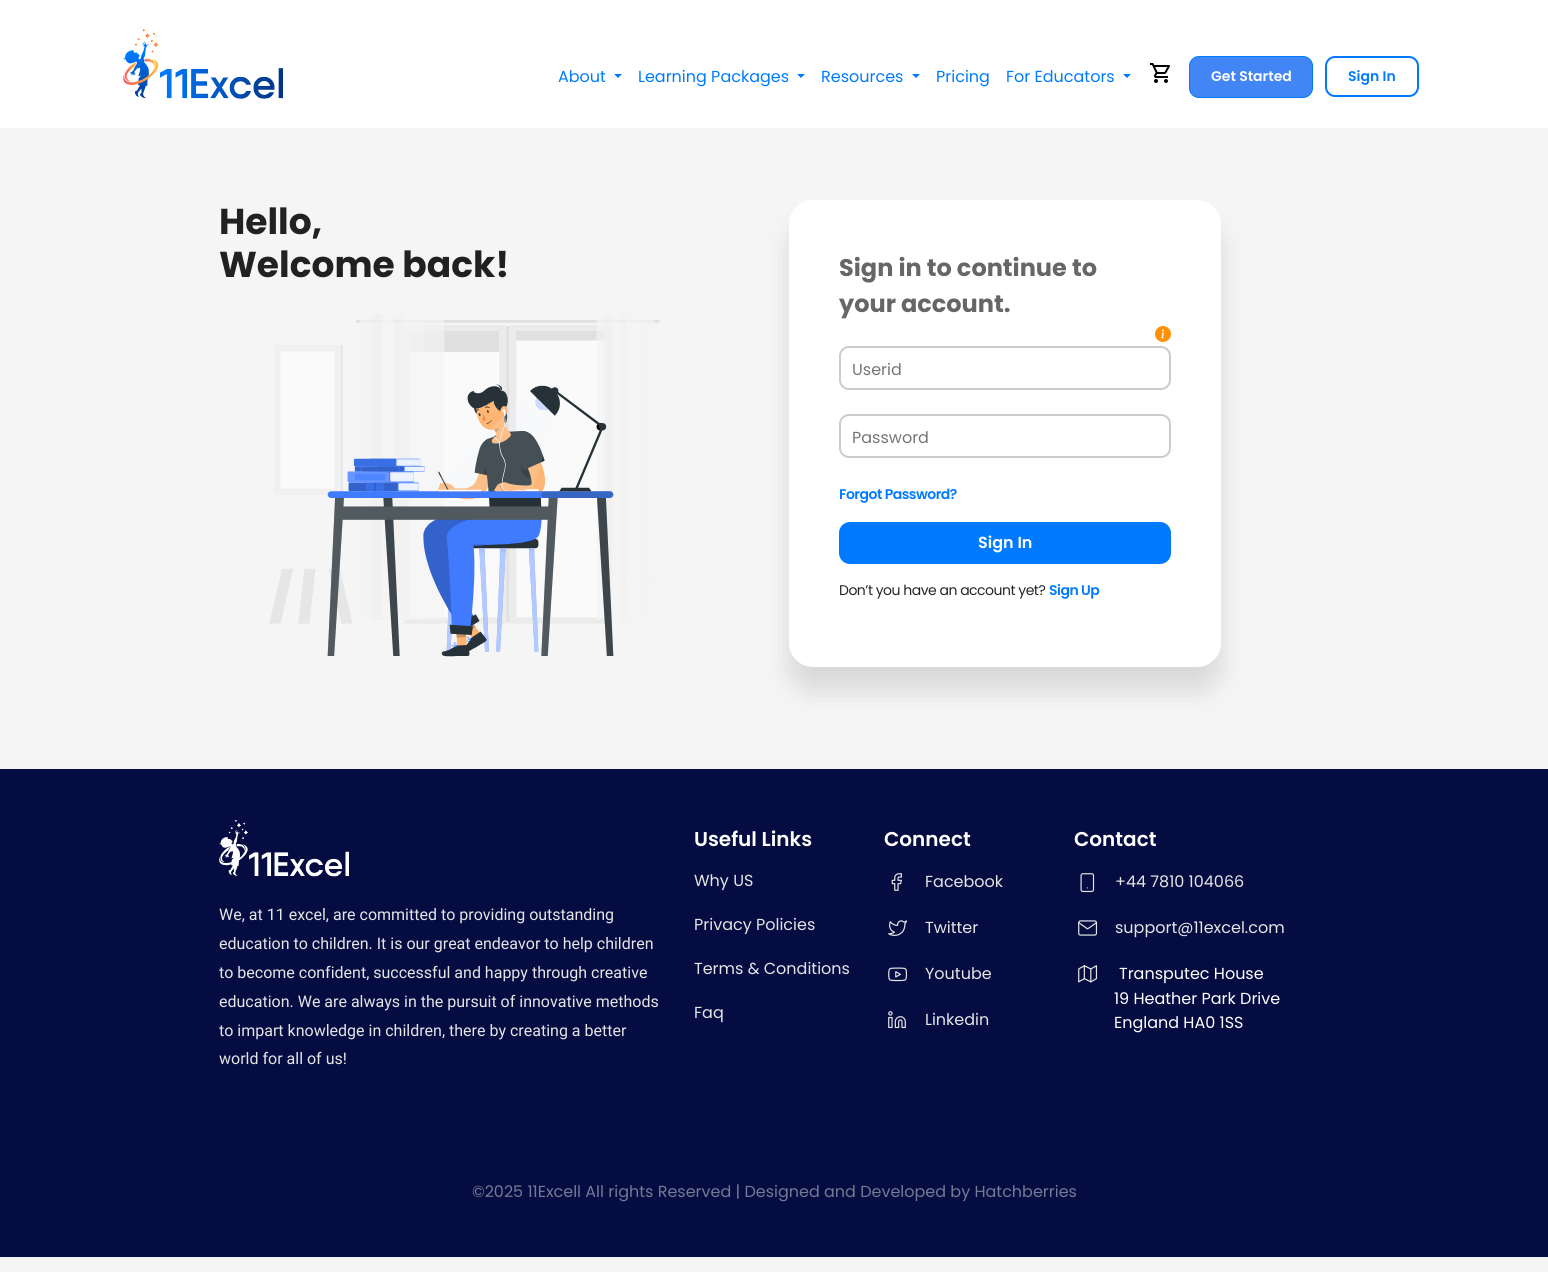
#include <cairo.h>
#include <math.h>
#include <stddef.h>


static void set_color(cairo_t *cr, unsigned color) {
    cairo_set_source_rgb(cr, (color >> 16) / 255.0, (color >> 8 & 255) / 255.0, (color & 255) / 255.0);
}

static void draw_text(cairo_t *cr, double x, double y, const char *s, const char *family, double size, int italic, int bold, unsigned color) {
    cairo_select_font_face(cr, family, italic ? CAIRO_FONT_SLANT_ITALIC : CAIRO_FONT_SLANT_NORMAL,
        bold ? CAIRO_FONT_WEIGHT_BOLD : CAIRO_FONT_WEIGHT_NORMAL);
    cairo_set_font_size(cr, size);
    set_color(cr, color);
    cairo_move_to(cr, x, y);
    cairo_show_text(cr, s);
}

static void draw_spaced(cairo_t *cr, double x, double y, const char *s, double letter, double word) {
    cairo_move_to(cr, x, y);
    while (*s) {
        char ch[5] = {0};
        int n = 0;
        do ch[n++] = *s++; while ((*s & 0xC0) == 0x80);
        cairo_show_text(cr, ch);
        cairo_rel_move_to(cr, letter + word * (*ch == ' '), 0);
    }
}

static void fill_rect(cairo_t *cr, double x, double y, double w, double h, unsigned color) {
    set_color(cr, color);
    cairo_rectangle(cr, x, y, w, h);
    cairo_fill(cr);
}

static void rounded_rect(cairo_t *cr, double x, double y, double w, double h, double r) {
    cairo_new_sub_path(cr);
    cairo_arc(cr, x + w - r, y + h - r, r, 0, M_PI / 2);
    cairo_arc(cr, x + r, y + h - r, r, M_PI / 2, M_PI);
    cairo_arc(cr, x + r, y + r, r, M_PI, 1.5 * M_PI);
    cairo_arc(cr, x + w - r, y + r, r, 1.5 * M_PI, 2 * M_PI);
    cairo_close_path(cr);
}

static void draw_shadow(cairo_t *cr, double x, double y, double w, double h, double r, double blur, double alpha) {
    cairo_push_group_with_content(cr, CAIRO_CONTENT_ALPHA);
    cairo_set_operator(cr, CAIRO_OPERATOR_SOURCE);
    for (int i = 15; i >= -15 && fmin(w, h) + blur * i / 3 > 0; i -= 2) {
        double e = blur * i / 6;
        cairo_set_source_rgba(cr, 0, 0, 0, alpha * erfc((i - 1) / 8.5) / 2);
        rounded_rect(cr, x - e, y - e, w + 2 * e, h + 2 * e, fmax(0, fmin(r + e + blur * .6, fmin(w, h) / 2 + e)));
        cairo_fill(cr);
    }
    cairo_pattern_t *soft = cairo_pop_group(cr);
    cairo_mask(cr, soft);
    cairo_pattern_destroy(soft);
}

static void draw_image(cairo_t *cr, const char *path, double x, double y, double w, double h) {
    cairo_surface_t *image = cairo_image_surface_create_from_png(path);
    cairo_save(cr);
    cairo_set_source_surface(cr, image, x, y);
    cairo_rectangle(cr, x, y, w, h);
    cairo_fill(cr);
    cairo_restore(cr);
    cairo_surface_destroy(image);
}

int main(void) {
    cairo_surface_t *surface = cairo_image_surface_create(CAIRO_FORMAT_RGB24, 1548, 1272);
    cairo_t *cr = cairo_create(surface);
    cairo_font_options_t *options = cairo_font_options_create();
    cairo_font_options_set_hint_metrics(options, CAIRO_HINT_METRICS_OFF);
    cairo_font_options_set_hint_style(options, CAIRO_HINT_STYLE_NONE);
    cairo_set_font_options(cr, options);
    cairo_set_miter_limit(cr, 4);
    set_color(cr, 0xF5F5F5);
    cairo_paint(cr);
    fill_rect(cr, 0, 0, 1548, 128, 0xFFFFFF);
    draw_image(cr, "assets/img1.png", 123, 29, 160, 70);
    draw_text(cr, 558, 82, "About", "Poppins", 16, 0, 0, 0x007BFF);
    set_color(cr, 0x0079FF);
    cairo_new_path(cr);
    cairo_move_to(cr, 614, 74);
    cairo_line_to(cr, 622, 74);
    cairo_line_to(cr, 618, 78);
    cairo_close_path(cr);
    cairo_fill(cr);
    draw_text(cr, 638, 82, "Learning Packages", "Poppins", 16, 0, 0, 0x007BFF);
    set_color(cr, 0x0079FF);
    cairo_new_path(cr);
    cairo_move_to(cr, 797, 74);
    cairo_line_to(cr, 805, 74);
    cairo_line_to(cr, 801, 78);
    cairo_close_path(cr);
    cairo_fill(cr);
    draw_text(cr, 821, 82, "Resources", "Poppins", 16, 0, 0, 0x007BFF);
    set_color(cr, 0x0079FF);
    cairo_new_path(cr);
    cairo_move_to(cr, 912, 74);
    cairo_line_to(cr, 920, 74);
    cairo_line_to(cr, 916, 78);
    cairo_close_path(cr);
    cairo_fill(cr);
    draw_text(cr, 936, 82, "Pricing", "Poppins", 16, 0, 0, 0x007BFF);
    draw_text(cr, 1006, 82, "For Educators", "Poppins", 16, 0, 0, 0x007BFF);
    set_color(cr, 0x0079FF);
    cairo_new_path(cr);
    cairo_move_to(cr, 1123, 74);
    cairo_line_to(cr, 1131, 74);
    cairo_line_to(cr, 1127, 78);
    cairo_close_path(cr);
    cairo_fill(cr);
    draw_image(cr, "assets/img2.png", 1150, 63, 20, 20);
    set_color(cr, 0x4285F4);
    rounded_rect(cr, 1189.5, 56.5, 123, 41, 9.5);
    cairo_fill_preserve(cr);
    set_color(cr, 0x007BFF);
    cairo_set_line_width(cr, 1);
    cairo_stroke(cr);
    draw_text(cr, 1211, 81, "Get Started", "Poppins SemiBold", 14, 0, 0, 0xFFFFFF);
    rounded_rect(cr, 1326, 57, 92, 39, 9);
    set_color(cr, 0x0079FF);
    cairo_set_line_width(cr, 2);
    cairo_stroke(cr);
    draw_text(cr, 1348, 81, "Sign In", "Poppins SemiBold", 14, 0, 0, 0x007BFF);
    draw_text(cr, 219, 234, "Hello,", "Poppins", 36, 0, 1, 0x212121);
    draw_text(cr, 219, 277, "Welcome back!", "Poppins", 36, 0, 1, 0x212121);
    draw_image(cr, "assets/img3.png", 269, 314, 391, 343);
    set_color(cr, 0x000000);
    draw_shadow(cr, 789, 224, 432, 467, 24, 13, 0.12);
    set_color(cr, 0xFFFFFF);
    rounded_rect(cr, 789, 200, 432, 467, 24);
    cairo_fill(cr);
    draw_text(cr, 839, 276, "Sign in to continue to", "Poppins", 24, 0, 1, 0x666666);
    draw_text(cr, 839, 312, "your account.", "Poppins", 24, 0, 1, 0x666666);
    draw_image(cr, "assets/img4.png", 1155, 326, 16, 16);
    rounded_rect(cr, 840, 347, 330, 42, 9);
    set_color(cr, 0xCCCCCC);
    cairo_stroke(cr);
    draw_text(cr, 852, 375, "Userid", "Poppins", 16, 0, 0, 0x757575);
    rounded_rect(cr, 840, 415, 330, 42, 9);
    set_color(cr, 0xCCCCCC);
    cairo_stroke(cr);
    draw_text(cr, 852, 443, "Password", "Poppins", 16, 0, 0, 0x757575);
    cairo_select_font_face(cr, "Poppins SemiBold", CAIRO_FONT_SLANT_NORMAL, CAIRO_FONT_WEIGHT_NORMAL);
    cairo_set_font_size(cr, 14);
    set_color(cr, 0x007BFF);
    draw_spaced(cr, 839, 499, "Forgot Password?", -0.5, 0);
    set_color(cr, 0x007AFF);
    rounded_rect(cr, 839, 522, 332, 42, 11);
    cairo_fill(cr);
    draw_text(cr, 978, 548, "Sign In", "Poppins SemiBold", 16, 0, 0, 0xFFFFFF);
    cairo_select_font_face(cr, "Poppins", CAIRO_FONT_SLANT_NORMAL, CAIRO_FONT_WEIGHT_NORMAL);
    cairo_set_font_size(cr, 14);
    set_color(cr, 0x212529);
    draw_spaced(cr, 839, 595, "Don’t you have an account yet?", -0.5, 0);
    cairo_select_font_face(cr, "Poppins SemiBold", CAIRO_FONT_SLANT_NORMAL, CAIRO_FONT_WEIGHT_NORMAL);
    set_color(cr, 0x007BFF);
    draw_spaced(cr, 1049, 595, "Sign Up", -0.5, 0);
    fill_rect(cr, 0, 769, 1548, 488, 0x040C41);
    draw_image(cr, "assets/img5.png", 219, 820, 130, 57);
    draw_text(cr, 219, 920, "We, at 11 excel, are committed to providing outstanding", "Roboto", 16, 0, 0, 0xE5E5E5);
    draw_text(cr, 219, 949, "education to children. It is our great endeavor to help children", "Roboto", 16, 0, 0, 0xE5E5E5);
    draw_text(cr, 219, 978, "to become confident, successful and happy through creative", "Roboto", 16, 0, 0, 0xE5E5E5);
    draw_text(cr, 219, 1007, "education. We are always in the pursuit of innovative methods", "Roboto", 16, 0, 0, 0xE5E5E5);
    draw_text(cr, 219, 1036, "to impart knowledge in children, there by creating a better", "Roboto", 16, 0, 0, 0xE5E5E5);
    draw_text(cr, 219, 1064, "world for all of us!", "Roboto", 16, 0, 0, 0xE5E5E5);
    draw_text(cr, 694, 846, "Useful Links", "Poppins SemiBold", 20, 0, 0, 0xFFFFFF);
    draw_text(cr, 694, 886, "Why US", "Poppins", 16, 0, 0, 0xE5E5E5);
    draw_text(cr, 694, 930, "Privacy Policies", "Poppins", 16, 0, 0, 0xE5E5E5);
    draw_text(cr, 694, 974, "Terms & Conditions", "Poppins", 16, 0, 0, 0xE5E5E5);
    draw_text(cr, 694, 1018, "Faq", "Poppins", 16, 0, 0, 0xE5E5E5);
    draw_text(cr, 884, 846, "Connect", "Poppins SemiBold", 20, 0, 0, 0xFFFFFF);
    draw_image(cr, "assets/img6.png", 891, 873, 11, 18);
    draw_text(cr, 925, 887, "Facebook", "Poppins", 16, 0, 0, 0xE5E5E5);
    draw_image(cr, "assets/img7.png", 888, 920, 19, 16);
    draw_text(cr, 925, 933, "Twitter", "Poppins", 16, 0, 0, 0xE5E5E5);
    draw_image(cr, "assets/img8.png", 888, 967, 20, 15);
    draw_text(cr, 925, 979, "Youtube", "Poppins", 16, 0, 0, 0xE5E5E5);
    draw_image(cr, "assets/img9.png", 888, 1011, 18, 18);
    draw_text(cr, 925, 1025, "Linkedin", "Poppins", 16, 0, 0, 0xE5E5E5);
    draw_text(cr, 1074, 846, "Contact", "Poppins SemiBold", 20, 0, 0, 0xFFFFFF);
    draw_image(cr, "assets/img10.png", 1080, 873, 15, 20);
    draw_text(cr, 1115, 887, "+44 7810 104066", "Poppins", 16, 0, 0, 0xE5E5E5);
    draw_image(cr, "assets/img11.png", 1078, 920, 20, 16);
    draw_text(cr, 1115, 933, "support@11excel.com", "Poppins", 16, 0, 0, 0xE5E5E5);
    draw_image(cr, "assets/img12.png", 1078, 965, 20, 18);
    draw_text(cr, 1119, 979, "Transputec House", "Poppins", 16, 0, 0, 0xFFFFFF);
    draw_text(cr, 1114, 1004, "19 Heather Park Drive", "Poppins", 16, 0, 0, 0xFFFFFF);
    draw_text(cr, 1114, 1028, "England HA0 1SS", "Poppins", 16, 0, 0, 0xFFFFFF);
    fill_rect(cr, 243, 1133, 1062, 1, 0x040B3B);
    draw_text(cr, 472, 1197, "©2025 11Excell All rights Reserved | Designed and Developed by Hatchberries", "Poppins", 16, 0, 0, 0x757993);
    cairo_surface_write_to_png(surface, "output.png");
    cairo_font_options_destroy(options);
    cairo_destroy(cr);
    cairo_surface_destroy(surface);
    return 0;
}
